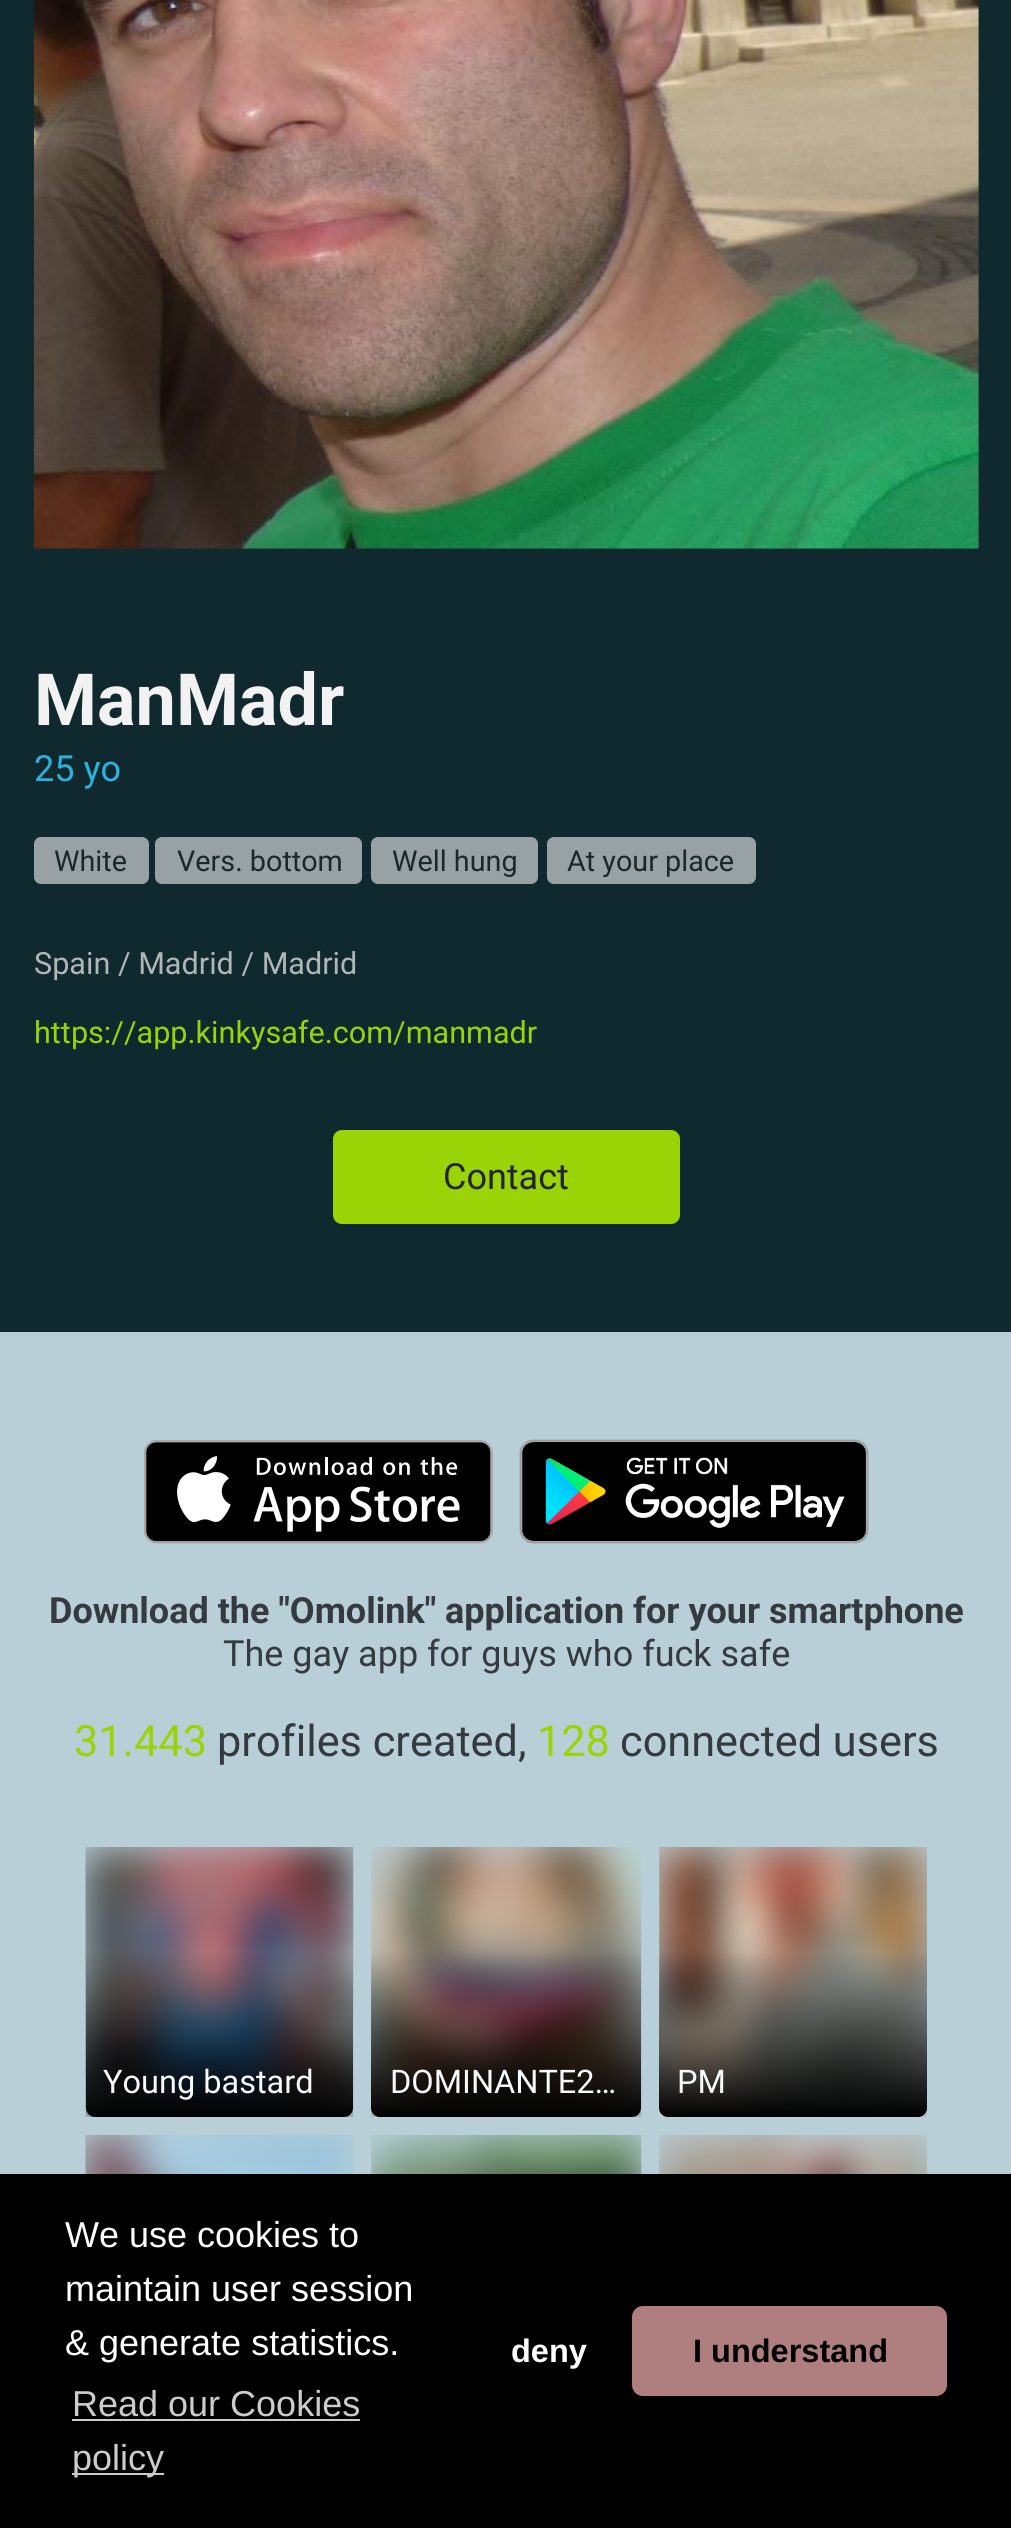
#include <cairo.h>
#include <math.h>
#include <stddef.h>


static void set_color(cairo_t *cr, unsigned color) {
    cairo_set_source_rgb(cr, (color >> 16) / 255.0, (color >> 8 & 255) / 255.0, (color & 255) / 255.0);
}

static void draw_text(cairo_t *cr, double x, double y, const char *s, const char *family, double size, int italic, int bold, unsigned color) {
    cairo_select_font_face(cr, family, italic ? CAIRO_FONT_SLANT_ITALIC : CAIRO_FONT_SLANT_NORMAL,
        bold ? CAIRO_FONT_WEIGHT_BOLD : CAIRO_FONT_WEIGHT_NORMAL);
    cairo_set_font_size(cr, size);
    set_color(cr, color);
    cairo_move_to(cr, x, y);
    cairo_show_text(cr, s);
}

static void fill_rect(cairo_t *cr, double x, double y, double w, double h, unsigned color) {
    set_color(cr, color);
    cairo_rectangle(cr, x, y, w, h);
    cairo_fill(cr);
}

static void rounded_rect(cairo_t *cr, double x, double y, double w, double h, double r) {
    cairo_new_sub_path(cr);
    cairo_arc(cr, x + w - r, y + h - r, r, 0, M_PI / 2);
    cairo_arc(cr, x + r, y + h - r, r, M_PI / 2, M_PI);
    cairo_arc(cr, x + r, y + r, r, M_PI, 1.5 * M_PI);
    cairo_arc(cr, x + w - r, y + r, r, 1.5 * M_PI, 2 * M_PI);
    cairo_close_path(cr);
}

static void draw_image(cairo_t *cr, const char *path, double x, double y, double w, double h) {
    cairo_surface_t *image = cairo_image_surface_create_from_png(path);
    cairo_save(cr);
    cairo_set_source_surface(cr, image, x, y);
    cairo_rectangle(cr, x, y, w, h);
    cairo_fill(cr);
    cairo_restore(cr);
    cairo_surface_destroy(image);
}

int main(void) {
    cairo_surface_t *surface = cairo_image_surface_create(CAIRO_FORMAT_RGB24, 1011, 2528);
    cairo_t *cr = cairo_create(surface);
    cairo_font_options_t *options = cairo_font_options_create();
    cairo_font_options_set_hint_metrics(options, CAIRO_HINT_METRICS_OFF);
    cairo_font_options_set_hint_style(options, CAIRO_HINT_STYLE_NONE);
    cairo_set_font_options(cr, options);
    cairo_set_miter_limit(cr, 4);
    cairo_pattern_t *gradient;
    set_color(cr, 0x10292F);
    cairo_paint(cr);
    draw_image(cr, "assets/img1.png", 33, 0, 946, 549);
    draw_text(cr, 34, 725, "ManMadr", "Roboto", 72, 0, 1, 0xF2F2F2);
    draw_text(cr, 34, 781, "25 yo", "Roboto", 36, 0, 0, 0x28B4DE);
    set_color(cr, 0x98A2A4);
    rounded_rect(cr, 35, 838, 113, 45, 6);
    cairo_fill_preserve(cr);
    cairo_stroke(cr);
    draw_text(cr, 54, 871, "White", "Roboto", 28.75, 0, 0, 0x1A272B);
    set_color(cr, 0x98A2A4);
    rounded_rect(cr, 156, 838, 205, 45, 6);
    cairo_fill_preserve(cr);
    cairo_stroke(cr);
    draw_text(cr, 177, 871, "Vers. bottom", "Roboto", 28.75, 0, 0, 0x1A272B);
    set_color(cr, 0x98A2A4);
    rounded_rect(cr, 372, 838, 165, 45, 6);
    cairo_fill_preserve(cr);
    cairo_stroke(cr);
    draw_text(cr, 392, 871, "Well hung", "Roboto", 28.75, 0, 0, 0x1A272B);
    set_color(cr, 0x98A2A4);
    rounded_rect(cr, 548, 838, 207, 45, 6);
    cairo_fill_preserve(cr);
    cairo_stroke(cr);
    draw_text(cr, 567, 871, "At your place", "Roboto", 28.75, 0, 0, 0x1A272B);
    draw_text(cr, 34, 974, "Spain / Madrid / Madrid", "Roboto", 30.6, 0, 0, 0xAEB6B8);
    draw_text(cr, 34, 1043, "https://app.kinkysafe.com/manmadr", "Roboto", 30.6, 0, 0, 0x9AD306);
    rounded_rect(cr, 334, 1131, 345, 92, 8);
    cairo_fill_preserve(cr);
    cairo_stroke(cr);
    draw_text(cr, 443, 1189, "Contact", "Roboto", 36, 0, 0, 0x212529);
    fill_rect(cr, 0, 1332, 1011, 842, 0xB8CFD7);
    draw_image(cr, "assets/img2.png", 144, 1440, 349, 104);
    draw_image(cr, "assets/img3.png", 519, 1439, 350, 105);
    draw_text(cr, 49, 1623, "Download the \"Omolink\" application for your smartphone", "Roboto", 36, 0, 1, 0x343A40);
    draw_text(cr, 223, 1666, "The gay app for guys who fuck safe", "Roboto", 36, 0, 0, 0x343A40);
    draw_text(cr, 74, 1756, "31.443", "Roboto", 43.25, 0, 0, 0x9AD306);
    draw_text(cr, 217, 1756, "profiles created,", "Roboto", 43.25, 0, 0, 0x343A40);
    draw_text(cr, 537, 1756, "128", "Roboto", 43.25, 0, 0, 0x9AD306);
    draw_text(cr, 620, 1756, "connected users", "Roboto", 43.25, 0, 0, 0x343A40);
    draw_image(cr, "assets/img4.png", 85, 1847, 269, 270);
    gradient = cairo_pattern_create_linear(219, 2117, 219, 1951);
    cairo_pattern_add_color_stop_rgba(gradient, 0, 0, 0, 0, 1);
    cairo_pattern_add_color_stop_rgba(gradient, 1, 0, 0, 0, 0);
    cairo_set_source(cr, gradient);
    cairo_pattern_destroy(gradient);
    cairo_new_path(cr);
    cairo_move_to(cr, 86, 1951);
    cairo_line_to(cr, 353, 1951);
    cairo_line_to(cr, 353, 2108);
    cairo_curve_to(cr, 353, 2113, 349, 2117, 344, 2117);
    cairo_line_to(cr, 95, 2117);
    cairo_curve_to(cr, 90, 2117, 86, 2113, 86, 2108);
    cairo_close_path(cr);
    cairo_fill(cr);
    draw_text(cr, 103, 2093, "Young bastard", "Roboto", 32.5, 0, 0, 0xF8F9FA);
    draw_image(cr, "assets/img5.png", 371, 1847, 271, 270);
    gradient = cairo_pattern_create_linear(506, 2117, 506, 1951);
    cairo_pattern_add_color_stop_rgba(gradient, 0, 0, 0, 0, 1);
    cairo_pattern_add_color_stop_rgba(gradient, 1, 0, 0, 0, 0);
    cairo_set_source(cr, gradient);
    cairo_pattern_destroy(gradient);
    cairo_new_path(cr);
    cairo_move_to(cr, 371, 1951);
    cairo_line_to(cr, 641, 1951);
    cairo_line_to(cr, 641, 2108);
    cairo_curve_to(cr, 641, 2113, 637, 2117, 632, 2117);
    cairo_line_to(cr, 380, 2117);
    cairo_curve_to(cr, 375, 2117, 371, 2113, 371, 2108);
    cairo_close_path(cr);
    cairo_fill(cr);
    draw_text(cr, 390, 2093, "DOMINANTE2…", "Roboto", 32.5, 0, 0, 0xF8F9FA);
    draw_image(cr, "assets/img6.png", 659, 1847, 268, 270);
    gradient = cairo_pattern_create_linear(793, 2117, 793, 1951);
    cairo_pattern_add_color_stop_rgba(gradient, 0, 0, 0, 0, 1);
    cairo_pattern_add_color_stop_rgba(gradient, 1, 0, 0, 0, 0);
    cairo_set_source(cr, gradient);
    cairo_pattern_destroy(gradient);
    cairo_new_path(cr);
    cairo_move_to(cr, 659, 1951);
    cairo_line_to(cr, 927, 1951);
    cairo_line_to(cr, 927, 2108);
    cairo_curve_to(cr, 927, 2113, 923, 2117, 918, 2117);
    cairo_line_to(cr, 668, 2117);
    cairo_curve_to(cr, 663, 2117, 659, 2113, 659, 2108);
    cairo_close_path(cr);
    cairo_fill(cr);
    draw_text(cr, 677, 2093, "PM", "Roboto", 32.5, 0, 0, 0xF8F9FA);
    draw_image(cr, "assets/img7.png", 85, 2135, 269, 39);
    draw_image(cr, "assets/img8.png", 371, 2135, 271, 39);
    draw_image(cr, "assets/img9.png", 659, 2135, 268, 39);
    fill_rect(cr, 0, 2174, 1011, 354, 0x000000);
    draw_text(cr, 65, 2247, "We use cookies to", "Liberation Sans", 36, 0, 0, 0xFFFFFF);
    draw_text(cr, 65, 2301, "maintain user session", "Liberation Sans", 36, 0, 0, 0xFFFFFF);
    draw_text(cr, 65, 2355, "& generate statistics.", "Liberation Sans", 36, 0, 0, 0xFFFFFF);
    draw_text(cr, 72, 2416, "Read our Cookies", "Liberation Sans", 36, 0, 0, 0xCCCCCC);
    fill_rect(cr, 72, 2419, 288, 2, 0xCCCCCC);
    fill_rect(cr, 72, 2473, 92, 2, 0xCCCCCC);
    draw_text(cr, 72, 2470, "policy", "Liberation Sans", 36, 0, 0, 0xCCCCCC);
    draw_text(cr, 511, 2362, "deny", "Liberation Sans", 32.5, 0, 1, 0xFFFFFF);
    set_color(cr, 0xAF7E7E);
    rounded_rect(cr, 632, 2306, 315, 90, 11);
    cairo_fill(cr);
    draw_text(cr, 693, 2362, "I understand", "Liberation Sans", 32.5, 0, 1, 0x000000);
    cairo_surface_write_to_png(surface, "output.png");
    cairo_font_options_destroy(options);
    cairo_destroy(cr);
    cairo_surface_destroy(surface);
    return 0;
}
